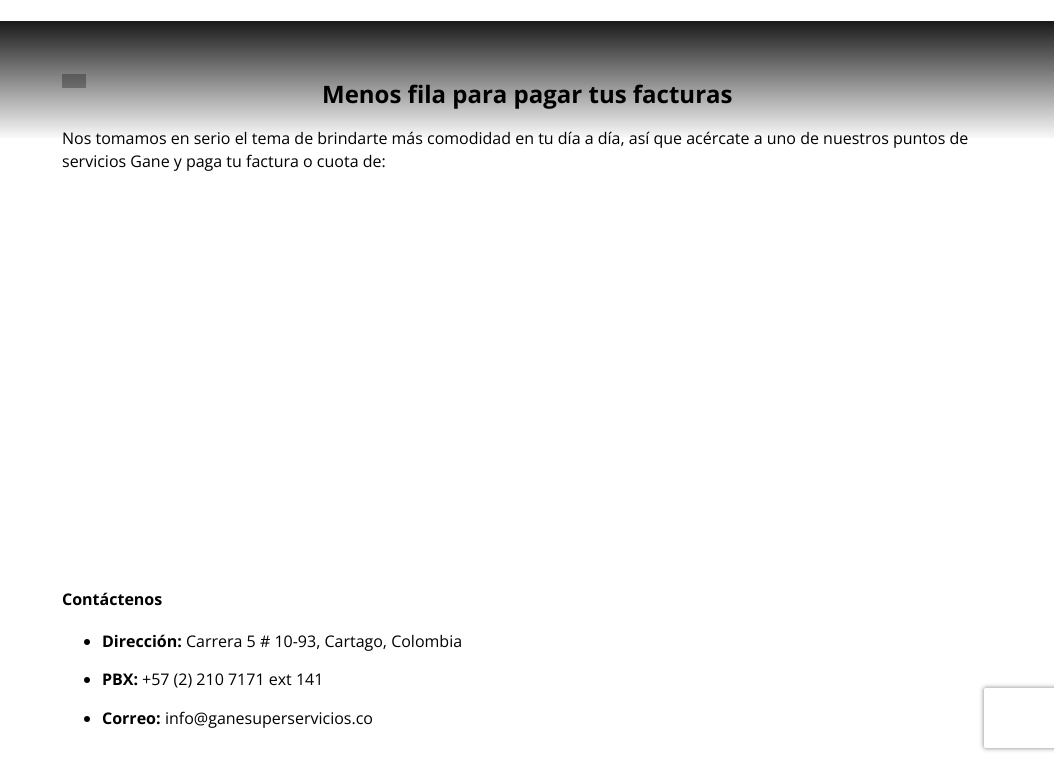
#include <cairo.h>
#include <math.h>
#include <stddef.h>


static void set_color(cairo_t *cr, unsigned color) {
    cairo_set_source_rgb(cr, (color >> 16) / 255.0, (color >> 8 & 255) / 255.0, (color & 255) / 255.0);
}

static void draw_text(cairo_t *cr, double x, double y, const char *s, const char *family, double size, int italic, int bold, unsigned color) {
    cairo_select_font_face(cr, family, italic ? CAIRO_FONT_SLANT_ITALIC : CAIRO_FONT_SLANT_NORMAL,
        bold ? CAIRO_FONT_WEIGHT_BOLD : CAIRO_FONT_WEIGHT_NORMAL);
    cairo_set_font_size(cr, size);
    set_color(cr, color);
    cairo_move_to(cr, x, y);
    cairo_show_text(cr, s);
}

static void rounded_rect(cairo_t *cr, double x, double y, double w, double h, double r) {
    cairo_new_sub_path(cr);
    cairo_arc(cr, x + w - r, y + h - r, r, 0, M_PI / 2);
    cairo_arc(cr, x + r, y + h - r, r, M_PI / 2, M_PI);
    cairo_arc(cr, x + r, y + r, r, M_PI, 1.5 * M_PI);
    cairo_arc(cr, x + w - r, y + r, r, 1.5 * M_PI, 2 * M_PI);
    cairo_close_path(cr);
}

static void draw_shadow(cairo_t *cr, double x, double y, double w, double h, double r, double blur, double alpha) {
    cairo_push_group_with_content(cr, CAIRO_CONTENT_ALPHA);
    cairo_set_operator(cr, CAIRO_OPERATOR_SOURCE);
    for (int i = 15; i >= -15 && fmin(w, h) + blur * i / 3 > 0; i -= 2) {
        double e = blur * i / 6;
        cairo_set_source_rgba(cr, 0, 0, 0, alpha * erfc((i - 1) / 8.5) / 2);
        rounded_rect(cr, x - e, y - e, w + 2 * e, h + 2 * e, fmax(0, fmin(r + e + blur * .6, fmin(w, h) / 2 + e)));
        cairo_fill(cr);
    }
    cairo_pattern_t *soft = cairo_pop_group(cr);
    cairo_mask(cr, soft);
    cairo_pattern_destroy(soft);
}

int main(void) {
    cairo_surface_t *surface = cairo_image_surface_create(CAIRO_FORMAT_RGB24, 1054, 762);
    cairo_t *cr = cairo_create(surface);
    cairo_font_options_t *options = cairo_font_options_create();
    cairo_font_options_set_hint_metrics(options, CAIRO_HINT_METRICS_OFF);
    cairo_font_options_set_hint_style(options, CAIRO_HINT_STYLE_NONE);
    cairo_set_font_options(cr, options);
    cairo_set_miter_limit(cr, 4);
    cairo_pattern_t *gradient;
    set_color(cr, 0xFFFFFF);
    cairo_paint(cr);
    draw_text(cr, 322, 103, "Menos fila para pagar tus facturas", "Open Sans", 24, 0, 1, 0x000000);
    draw_text(cr, 62, 144, "Nos tomamos en serio el tema de brindarte más comodidad en tu día a día, así que acércate a uno de nuestros puntos de", "Open Sans", 16, 0, 0, 0x000000);
    gradient = cairo_pattern_create_linear(527, 21, 527, 141);
    cairo_pattern_add_color_stop_rgba(gradient, 0, 0, 0, 0, 0.9);
    cairo_pattern_add_color_stop_rgba(gradient, 1, 0, 0, 0, 0);
    cairo_set_source(cr, gradient);
    cairo_pattern_destroy(gradient);
    cairo_rectangle(cr, 0, 21, 1054, 117);
    cairo_fill(cr);
    cairo_set_source_rgba(cr, 0, 0, 0, 0.3);
    cairo_rectangle(cr, 62, 74, 24, 14);
    cairo_fill(cr);
    draw_text(cr, 62, 167, "servicios Gane y paga tu factura o cuota de:", "Open Sans", 16, 0, 0, 0x000000);
    draw_text(cr, 62, 605, "Contáctenos", "Open Sans", 16, 0, 1, 0x000000);
    cairo_new_path(cr);
    cairo_arc(cr, 87, 642, 3, 0, 2 * M_PI);
    cairo_fill(cr);
    draw_text(cr, 102, 647, "Dirección:", "Open Sans", 16, 0, 1, 0x000000);
    draw_text(cr, 186, 647, "Carrera 5 # 10-93, Cartago, Colombia", "Open Sans", 16, 0, 0, 0x000000);
    cairo_new_path(cr);
    cairo_arc(cr, 87, 680, 3, 0, 2 * M_PI);
    cairo_fill(cr);
    draw_text(cr, 102, 685, "PBX:", "Open Sans", 16, 0, 1, 0x000000);
    draw_text(cr, 142, 685, "+57 (2) 210 7171 ext 141", "Open Sans", 16, 0, 0, 0x000000);
    cairo_new_path(cr);
    cairo_arc(cr, 87, 719, 3, 0, 2 * M_PI);
    cairo_fill(cr);
    draw_text(cr, 102, 724, "Correo:", "Open Sans", 16, 0, 1, 0x000000);
    draw_text(cr, 165, 724, "info@ganesuperservicios.co", "Open Sans", 16, 0, 0, 0x000000);
    cairo_save(cr);
    cairo_set_fill_rule(cr, CAIRO_FILL_RULE_EVEN_ODD);
    cairo_new_path(cr);
    cairo_move_to(cr, 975, 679);
    cairo_line_to(cr, 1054, 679);
    cairo_line_to(cr, 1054, 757);
    cairo_line_to(cr, 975, 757);
    cairo_close_path(cr);
    cairo_move_to(cr, 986, 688);
    cairo_line_to(cr, 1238, 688);
    cairo_curve_to(cr, 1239, 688, 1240, 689, 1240, 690);
    cairo_line_to(cr, 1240, 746);
    cairo_curve_to(cr, 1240, 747, 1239, 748, 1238, 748);
    cairo_line_to(cr, 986, 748);
    cairo_curve_to(cr, 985, 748, 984, 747, 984, 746);
    cairo_line_to(cr, 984, 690);
    cairo_curve_to(cr, 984, 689, 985, 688, 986, 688);
    cairo_close_path(cr);
    cairo_clip(cr);
    set_color(cr, 0x808080);
    draw_shadow(cr, 984, 688, 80, 60, 2, 2.5, 1);
    cairo_restore(cr);
    cairo_surface_write_to_png(surface, "output.png");
    cairo_font_options_destroy(options);
    cairo_destroy(cr);
    cairo_surface_destroy(surface);
    return 0;
}
